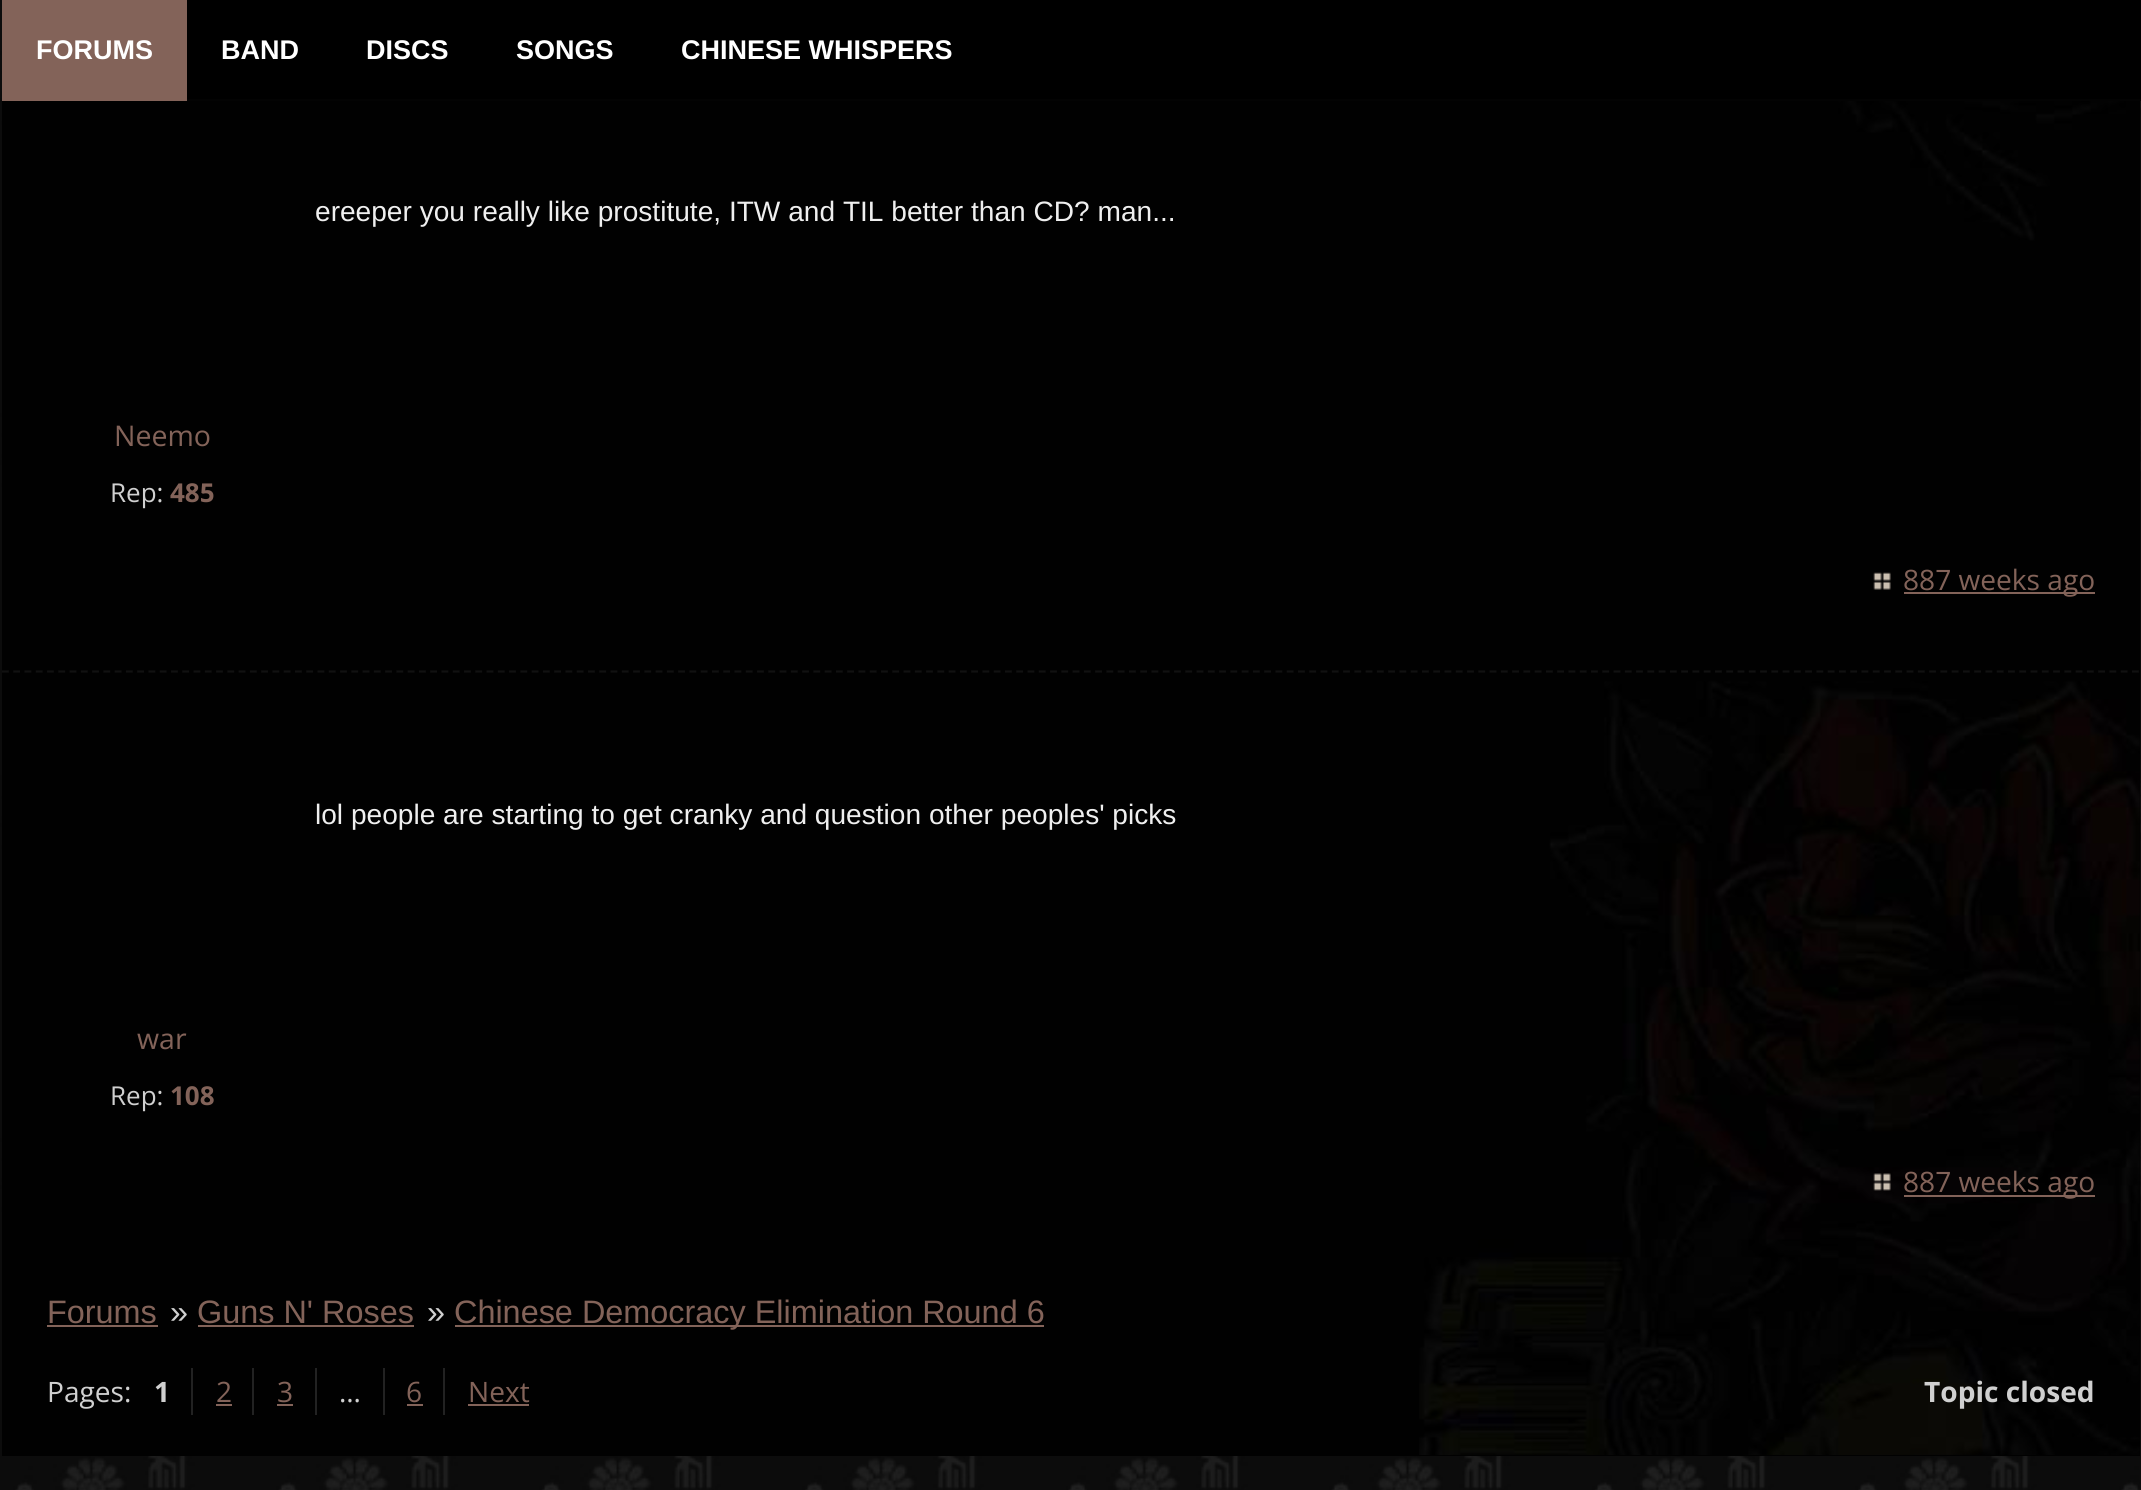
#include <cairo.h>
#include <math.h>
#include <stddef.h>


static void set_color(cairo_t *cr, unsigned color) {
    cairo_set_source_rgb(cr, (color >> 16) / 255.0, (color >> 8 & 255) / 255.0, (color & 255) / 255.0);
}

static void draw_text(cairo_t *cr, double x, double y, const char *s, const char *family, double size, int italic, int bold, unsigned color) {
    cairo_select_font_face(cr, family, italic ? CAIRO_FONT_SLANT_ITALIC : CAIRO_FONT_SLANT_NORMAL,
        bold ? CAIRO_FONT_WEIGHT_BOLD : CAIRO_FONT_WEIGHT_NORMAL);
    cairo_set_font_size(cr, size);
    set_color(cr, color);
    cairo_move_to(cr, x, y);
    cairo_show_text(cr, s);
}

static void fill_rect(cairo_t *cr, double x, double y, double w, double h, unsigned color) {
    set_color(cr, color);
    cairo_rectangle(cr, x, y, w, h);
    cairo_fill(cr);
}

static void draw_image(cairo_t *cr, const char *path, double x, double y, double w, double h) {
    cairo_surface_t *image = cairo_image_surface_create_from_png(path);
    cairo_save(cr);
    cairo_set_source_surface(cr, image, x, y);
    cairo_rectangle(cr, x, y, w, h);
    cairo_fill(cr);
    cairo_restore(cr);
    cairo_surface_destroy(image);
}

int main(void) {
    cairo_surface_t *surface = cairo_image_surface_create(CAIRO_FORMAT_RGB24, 2141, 1490);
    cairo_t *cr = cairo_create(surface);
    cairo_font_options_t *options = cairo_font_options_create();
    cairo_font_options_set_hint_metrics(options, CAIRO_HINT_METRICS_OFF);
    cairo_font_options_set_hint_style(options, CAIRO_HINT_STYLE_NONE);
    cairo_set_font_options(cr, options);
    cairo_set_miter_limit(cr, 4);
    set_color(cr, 0xFFFFFF);
    cairo_paint(cr);
    draw_image(cr, "assets/img1.png", 0, 0, 2141, 1490);
    fill_rect(cr, 187, 0, 1954, 99, 0x000000);
    fill_rect(cr, 187, 99, 1954, 2, 0x030303);
    fill_rect(cr, 2, 0, 185, 101, 0x836359);
    draw_text(cr, 36, 59, "FORUMS", "Liberation Sans", 27, 0, 1, 0xFFFFFF);
    draw_text(cr, 221, 59, "BAND", "Liberation Sans", 27, 0, 1, 0xFFFFFF);
    draw_text(cr, 366, 59, "DISCS", "Liberation Sans", 27, 0, 1, 0xFFFFFF);
    draw_text(cr, 516, 59, "SONGS", "Liberation Sans", 27, 0, 1, 0xFFFFFF);
    draw_text(cr, 681, 59, "CHINESE WHISPERS", "Liberation Sans", 27, 0, 1, 0xFFFFFF);
    fill_rect(cr, 2, 101, 2138, 1355, 0x010101);
    draw_image(cr, "assets/img2.png", 1419, 101, 721, 1354);
    draw_text(cr, 315, 221, "ereeper you really like prostitute, ITW and TIL better than CD? man...", "Liberation Sans", 28.1, 0, 0, 0xEFEFEF);
    draw_text(cr, 114, 446, "Neemo", "Open Sans", 28.5, 0, 0, 0x836359);
    draw_text(cr, 110, 502, "Rep:", "Open Sans", 26, 0, 0, 0xD0D0D0);
    draw_text(cr, 170, 502, "485", "Open Sans", 26, 0, 1, 0x836359);
    draw_image(cr, "assets/img3.png", 1873, 572, 18, 18);
    fill_rect(cr, 1904, 592, 191, 2, 0x836359);
    draw_text(cr, 1903, 590, "887 weeks ago", "Open Sans", 28.1, 0, 0, 0x836359);
    cairo_new_path(cr);
    cairo_move_to(cr, 2, 671.5);
    cairo_line_to(cr, 2140, 671.5);
    set_color(cr, 0x111111);
    cairo_set_line_width(cr, 2.2);
    cairo_set_dash(cr, (double[]){6.75, 4.52}, 2, 0);
    cairo_stroke(cr);
    draw_text(cr, 315, 824, "lol people are starting to get cranky and question other peoples' picks", "Liberation Sans", 28.1, 0, 0, 0xEFEFEF);
    draw_text(cr, 137, 1049, "war", "Open Sans", 28.5, 0, 0, 0x836359);
    draw_text(cr, 110, 1105, "Rep:", "Open Sans", 26, 0, 0, 0xD0D0D0);
    draw_text(cr, 170, 1105, "108", "Open Sans", 26, 0, 1, 0x836359);
    draw_image(cr, "assets/img4.png", 1873, 1173, 18, 18);
    fill_rect(cr, 1904, 1195, 191, 2, 0x836359);
    draw_text(cr, 1903, 1192, "887 weeks ago", "Open Sans", 28.1, 0, 0, 0x836359);
    draw_text(cr, 47, 1323, "Forums", "Liberation Sans", 32.4, 0, 0, 0x836359);
    fill_rect(cr, 47, 1325, 111, 2, 0x836359);
    draw_text(cr, 170, 1323, "»", "Liberation Sans", 32.4, 0, 0, 0xD0D0D0);
    draw_text(cr, 197, 1323, "Guns N' Roses", "Liberation Sans", 32.4, 0, 0, 0x836359);
    fill_rect(cr, 198, 1325, 216, 2, 0x836359);
    draw_text(cr, 427, 1323, "»", "Liberation Sans", 32.4, 0, 0, 0xD0D0D0);
    fill_rect(cr, 455, 1325, 589, 2, 0x836359);
    draw_text(cr, 454, 1323, "Chinese Democracy Elimination Round 6", "Liberation Sans", 32.4, 0, 0, 0x836359);
    draw_text(cr, 47, 1402, "Pages:", "Open Sans", 28.1, 0, 0, 0xD0D0D0);
    draw_text(cr, 154, 1402, "1", "Open Sans", 28.1, 0, 1, 0xD0D0D0);
    fill_rect(cr, 191, 1368, 2, 47, 0x222222);
    draw_text(cr, 216, 1402, "2", "Open Sans", 28.1, 0, 0, 0x836359);
    fill_rect(cr, 216, 1404, 16, 2, 0x836359);
    fill_rect(cr, 252, 1368, 2, 47, 0x222222);
    draw_text(cr, 277, 1402, "3", "Open Sans", 28.1, 0, 0, 0x836359);
    fill_rect(cr, 277, 1404, 16, 2, 0x836359);
    fill_rect(cr, 315, 1368, 2, 47, 0x222222);
    draw_text(cr, 339, 1402, "…", "Open Sans", 28.1, 0, 0, 0xD0D0D0);
    fill_rect(cr, 383, 1368, 2, 47, 0x222222);
    draw_text(cr, 406, 1402, "6", "Open Sans", 28.1, 0, 0, 0x836359);
    fill_rect(cr, 407, 1404, 16, 2, 0x836359);
    fill_rect(cr, 443, 1368, 2, 47, 0x222222);
    draw_text(cr, 468, 1402, "Next", "Open Sans", 28.1, 0, 0, 0x836359);
    fill_rect(cr, 468, 1404, 61, 2, 0x836359);
    draw_text(cr, 1924, 1402, "Topic closed", "Open Sans", 28.1, 0, 1, 0xD0D0D0);
    cairo_surface_write_to_png(surface, "output.png");
    cairo_font_options_destroy(options);
    cairo_destroy(cr);
    cairo_surface_destroy(surface);
    return 0;
}
